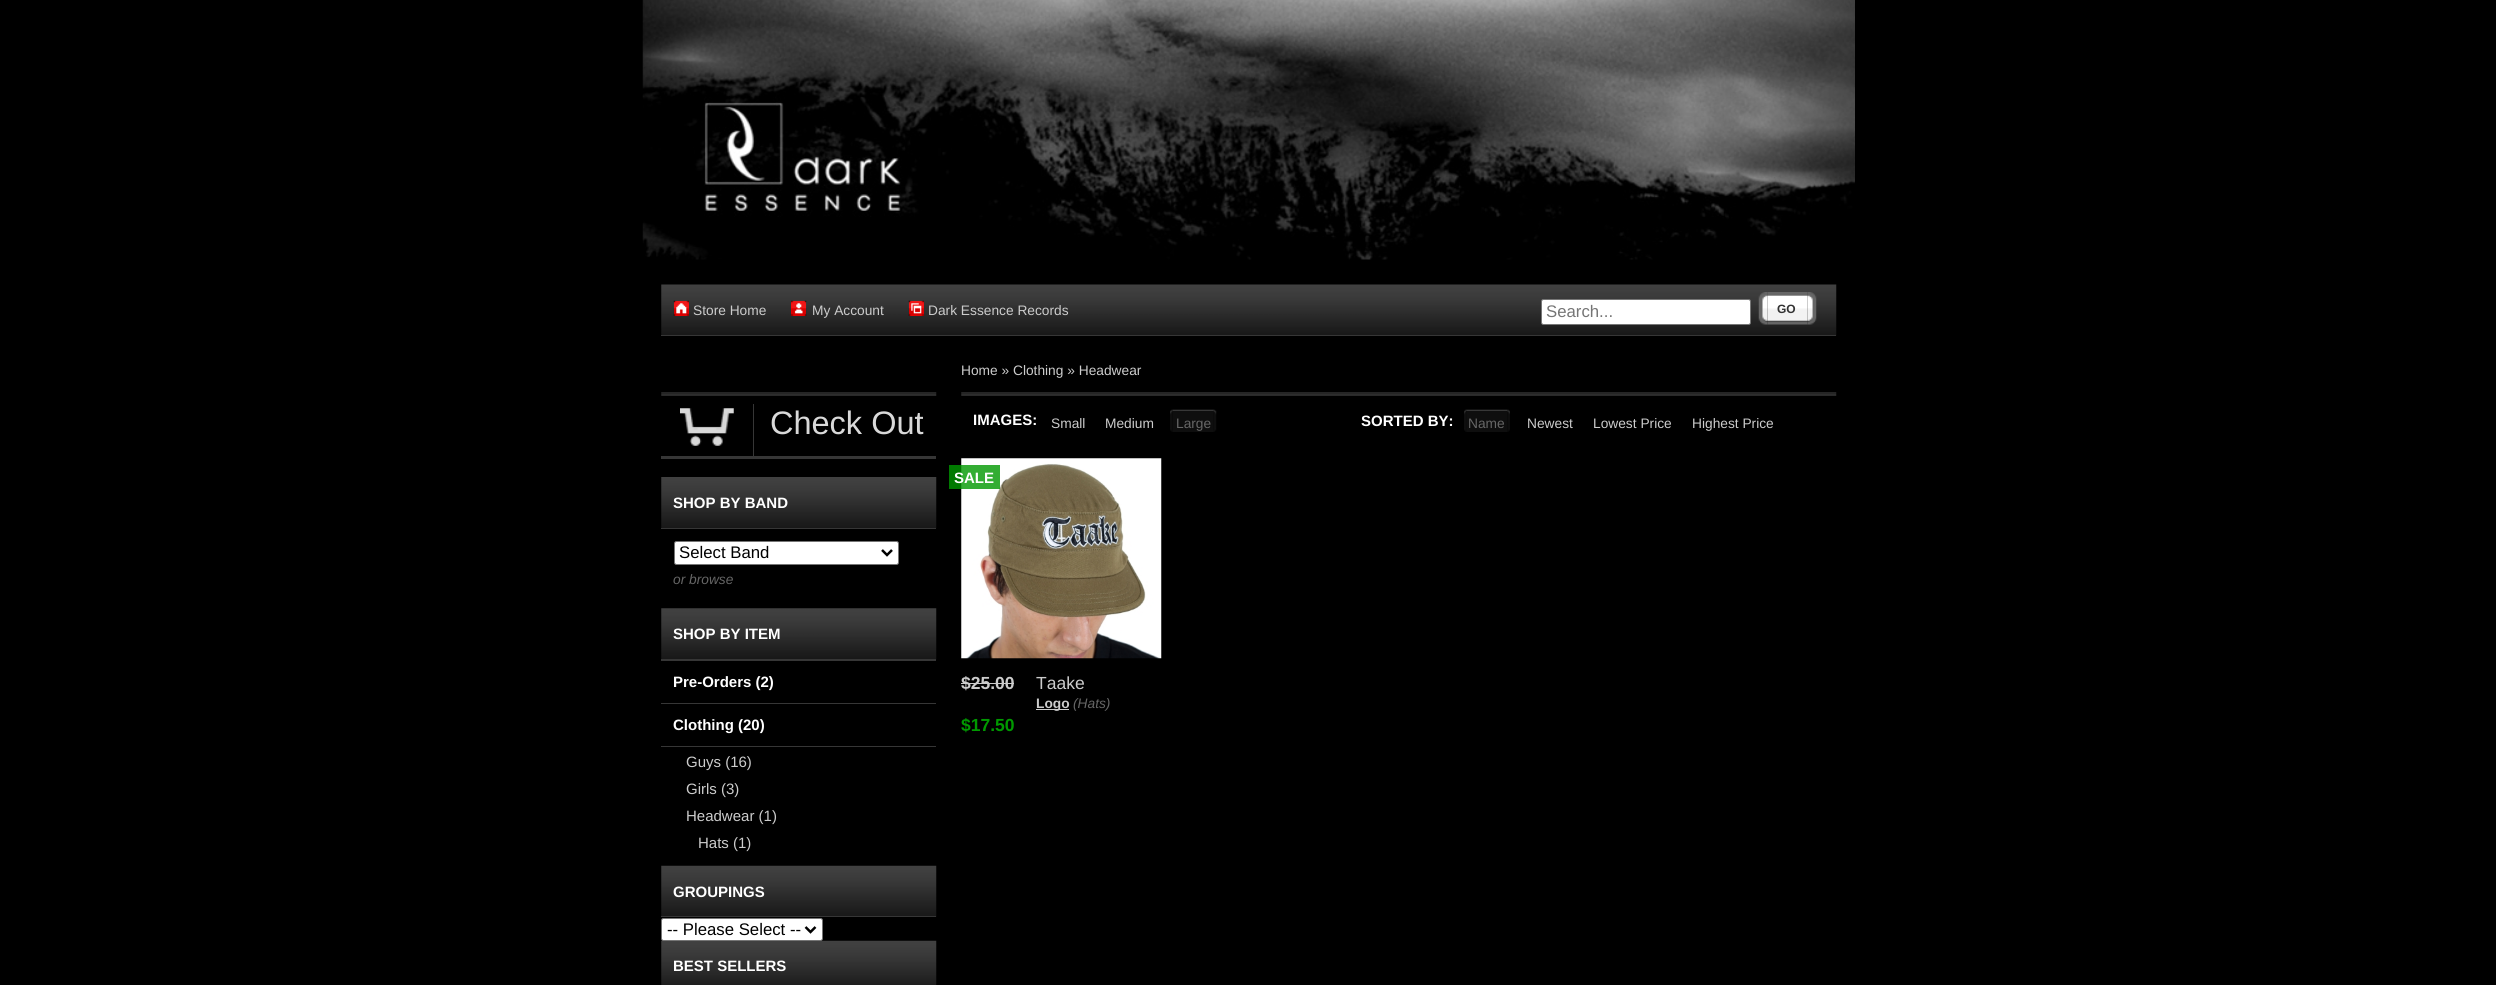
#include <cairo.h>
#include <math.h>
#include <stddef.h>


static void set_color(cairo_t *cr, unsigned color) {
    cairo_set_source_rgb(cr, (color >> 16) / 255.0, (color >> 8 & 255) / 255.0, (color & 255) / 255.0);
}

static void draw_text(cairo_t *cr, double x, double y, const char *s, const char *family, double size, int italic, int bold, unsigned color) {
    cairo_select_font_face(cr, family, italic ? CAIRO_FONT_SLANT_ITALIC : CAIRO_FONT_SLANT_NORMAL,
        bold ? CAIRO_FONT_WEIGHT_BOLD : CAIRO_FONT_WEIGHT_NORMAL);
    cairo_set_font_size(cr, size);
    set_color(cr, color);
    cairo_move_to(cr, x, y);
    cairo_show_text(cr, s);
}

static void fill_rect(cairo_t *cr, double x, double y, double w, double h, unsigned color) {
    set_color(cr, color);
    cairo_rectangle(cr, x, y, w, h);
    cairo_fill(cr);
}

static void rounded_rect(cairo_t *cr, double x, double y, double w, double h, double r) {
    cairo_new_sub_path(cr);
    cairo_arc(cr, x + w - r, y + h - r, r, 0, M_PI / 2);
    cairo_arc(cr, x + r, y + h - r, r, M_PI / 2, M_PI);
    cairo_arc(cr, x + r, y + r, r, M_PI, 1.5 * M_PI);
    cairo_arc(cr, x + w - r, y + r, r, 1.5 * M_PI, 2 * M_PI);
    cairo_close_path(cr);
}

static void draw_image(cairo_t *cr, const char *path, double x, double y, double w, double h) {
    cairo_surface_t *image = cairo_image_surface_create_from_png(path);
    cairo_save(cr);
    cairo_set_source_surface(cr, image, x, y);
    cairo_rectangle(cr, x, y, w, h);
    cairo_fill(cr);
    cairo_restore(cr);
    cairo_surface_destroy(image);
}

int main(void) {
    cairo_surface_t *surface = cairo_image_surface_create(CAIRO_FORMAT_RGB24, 2496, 985);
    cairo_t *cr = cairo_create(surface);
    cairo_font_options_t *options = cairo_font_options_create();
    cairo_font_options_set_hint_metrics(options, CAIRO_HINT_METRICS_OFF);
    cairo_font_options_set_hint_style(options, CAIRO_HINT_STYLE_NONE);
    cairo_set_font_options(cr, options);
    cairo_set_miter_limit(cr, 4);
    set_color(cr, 0x000000);
    cairo_paint(cr);
    draw_image(cr, "assets/img1.png", 642, 0, 1213, 260);
    draw_image(cr, "assets/img2.png", 661, 284, 1176, 52);
    fill_rect(cr, 661, 335, 1175, 1, 0x363636);
    fill_rect(cr, 674, 301, 15, 15, 0xFF0000);
    draw_image(cr, "assets/img3.png", 673, 300, 16, 16);
    draw_text(cr, 693, 315, "Store Home", "Liberation Sans", 13.75, 0, 0, 0xCCCCCC);
    fill_rect(cr, 791, 301, 15, 15, 0xFF0000);
    draw_image(cr, "assets/img4.png", 791, 300, 16, 16);
    draw_text(cr, 812, 315, "My Account", "Liberation Sans", 13.75, 0, 0, 0xCCCCCC);
    fill_rect(cr, 909, 301, 15, 15, 0xFF0000);
    draw_image(cr, "assets/img5.png", 908, 300, 16, 16);
    draw_text(cr, 928, 315, "Dark Essence Records", "Liberation Sans", 13.75, 0, 0, 0xCCCCCC);
    set_color(cr, 0xFFFFFF);
    rounded_rect(cr, 1541.5, 299.5, 209, 25, 2);
    cairo_fill_preserve(cr);
    set_color(cr, 0x767676);
    cairo_set_line_width(cr, 1);
    cairo_stroke(cr);
    draw_text(cr, 1546, 317, "Search...", "Liberation Sans", 16.75, 0, 0, 0x757575);
    draw_image(cr, "assets/img6.png", 1758, 292, 10, 33);
    draw_image(cr, "assets/img7.png", 1767, 292, 41, 33);
    draw_text(cr, 1777, 313, "GO", "Liberation Sans", 12, 0, 1, 0x333333);
    draw_image(cr, "assets/img8.png", 1807, 292, 10, 33);
    draw_image(cr, "assets/img9.png", 661, 392, 276, 4);
    fill_rect(cr, 661, 456, 275, 3, 0x363636);
    draw_image(cr, "assets/img10.png", 680, 408, 54, 38);
    fill_rect(cr, 753, 404, 1, 52, 0x363636);
    draw_text(cr, 770, 434, "Check Out", "Liberation Sans", 32.5, 0, 0, 0xD9D9D9);
    draw_image(cr, "assets/img11.png", 661, 477, 276, 52);
    fill_rect(cr, 661, 528, 275, 1, 0x363636);
    draw_text(cr, 673, 508, "SHOP BY BAND", "Liberation Sans", 15, 0, 1, 0xFFFFFF);
    rounded_rect(cr, 674.5, 541.5, 224, 23, 2);
    cairo_fill_preserve(cr);
    set_color(cr, 0x767676);
    cairo_stroke(cr);
    cairo_new_path(cr);
    cairo_move_to(cr, 882, 550);
    cairo_line_to(cr, 887, 555);
    cairo_line_to(cr, 892, 550);
    set_color(cr, 0x000000);
    cairo_set_line_width(cr, 2.5);
    cairo_stroke(cr);
    draw_text(cr, 679, 558, "Select Band", "Liberation Sans", 16.75, 0, 0, 0x000000);
    draw_text(cr, 673, 584, "or browse", "Liberation Sans", 13.75, 1, 0, 0x666666);
    draw_image(cr, "assets/img12.png", 661, 608, 276, 52);
    fill_rect(cr, 661, 659, 275, 2, 0x363636);
    draw_text(cr, 673, 639, "SHOP BY ITEM", "Liberation Sans", 15, 0, 1, 0xFFFFFF);
    fill_rect(cr, 661, 703, 275, 1, 0x363636);
    draw_text(cr, 673, 687, "Pre-Orders (2)", "Liberation Sans", 15, 0, 1, 0xFFFFFF);
    fill_rect(cr, 661, 746, 275, 1, 0x363636);
    draw_text(cr, 673, 730, "Clothing (20)", "Liberation Sans", 15, 0, 1, 0xFFFFFF);
    draw_text(cr, 686, 767, "Guys (16)", "Liberation Sans", 15, 0, 0, 0xCCCCCC);
    draw_text(cr, 686, 794, "Girls (3)", "Liberation Sans", 15, 0, 0, 0xCCCCCC);
    draw_text(cr, 686, 821, "Headwear (1)", "Liberation Sans", 15, 0, 0, 0xCCCCCC);
    draw_text(cr, 698, 848, "Hats (1)", "Liberation Sans", 15, 0, 0, 0xCCCCCC);
    draw_image(cr, "assets/img13.png", 661, 865, 276, 52);
    fill_rect(cr, 661, 916, 275, 1, 0x363636);
    draw_text(cr, 673, 897, "GROUPINGS", "Liberation Sans", 15, 0, 1, 0xFFFFFF);
    draw_image(cr, "assets/img14.png", 661, 940, 276, 45);
    rounded_rect(cr, 661.5, 918.5, 161, 22, 2);
    cairo_fill_preserve(cr);
    set_color(cr, 0x767676);
    cairo_set_line_width(cr, 1);
    cairo_stroke(cr);
    cairo_new_path(cr);
    cairo_move_to(cr, 805.5, 927);
    cairo_line_to(cr, 810.5, 932);
    cairo_line_to(cr, 815.5, 927);
    set_color(cr, 0x000000);
    cairo_set_line_width(cr, 2.5);
    cairo_stroke(cr);
    draw_text(cr, 667, 935, "-- Please Select --", "Liberation Sans", 16.75, 0, 0, 0x000000);
    draw_text(cr, 673, 971, "BEST SELLERS", "Liberation Sans", 15, 0, 1, 0xFFFFFF);
    draw_image(cr, "assets/img15.png", 961, 392, 876, 4);
    draw_text(cr, 961, 375, "Home » Clothing » Headwear", "Liberation Sans", 13.75, 0, 0, 0xCCCCCC);
    draw_text(cr, 973, 425, "IMAGES:", "Liberation Sans", 15, 0, 1, 0xFFFFFF);
    draw_text(cr, 1051, 428, "Small", "Liberation Sans", 13.75, 0, 0, 0xCCCCCC);
    draw_text(cr, 1105, 428, "Medium", "Liberation Sans", 13.75, 0, 0, 0xCCCCCC);
    draw_image(cr, "assets/img16.png", 1170, 409, 3, 23);
    draw_image(cr, "assets/img17.png", 1172, 409, 42, 23);
    draw_text(cr, 1176, 428, "Large", "Liberation Sans", 13.75, 0, 0, 0x666666);
    draw_image(cr, "assets/img18.png", 1213, 409, 4, 23);
    draw_text(cr, 1361, 426, "SORTED BY:", "Liberation Sans", 15, 0, 1, 0xFFFFFF);
    draw_image(cr, "assets/img19.png", 1464, 409, 3, 23);
    draw_image(cr, "assets/img20.png", 1466, 409, 42, 23);
    draw_text(cr, 1468, 428, "Name", "Liberation Sans", 13.75, 0, 0, 0x666666);
    draw_image(cr, "assets/img21.png", 1507, 409, 3, 23);
    draw_text(cr, 1527, 428, "Newest", "Liberation Sans", 13.75, 0, 0, 0xCCCCCC);
    draw_text(cr, 1593, 428, "Lowest Price", "Liberation Sans", 13.75, 0, 0, 0xCCCCCC);
    draw_text(cr, 1692, 428, "Highest Price", "Liberation Sans", 13.75, 0, 0, 0xCCCCCC);
    draw_image(cr, "assets/img22.png", 961, 458, 201, 201);
    cairo_set_source_rgba(cr, 0, 0.6, 0, 0.8);
    cairo_rectangle(cr, 949, 465, 51, 24);
    cairo_fill(cr);
    draw_text(cr, 954, 483, "SALE", "Liberation Sans", 15, 0, 1, 0xFFFFFF);
    draw_text(cr, 961, 689, "$25.00", "Liberation Sans", 17.5, 0, 1, 0xCCCCCC);
    fill_rect(cr, 961, 683, 53, 1, 0xCCCCCC);
    draw_text(cr, 961, 731, "$17.50", "Liberation Sans", 17.5, 0, 1, 0x009900);
    draw_text(cr, 1036, 689, "Taake", "Liberation Sans", 17.5, 0, 0, 0xCCCCCC);
    fill_rect(cr, 1036, 709, 33, 1, 0xCCCCCC);
    draw_text(cr, 1036, 708, "Logo", "Liberation Sans", 13.75, 0, 1, 0xCCCCCC);
    draw_text(cr, 1073, 708, "(Hats)", "Liberation Sans", 13.75, 1, 0, 0x666666);
    cairo_surface_write_to_png(surface, "output.png");
    cairo_font_options_destroy(options);
    cairo_destroy(cr);
    cairo_surface_destroy(surface);
    return 0;
}
